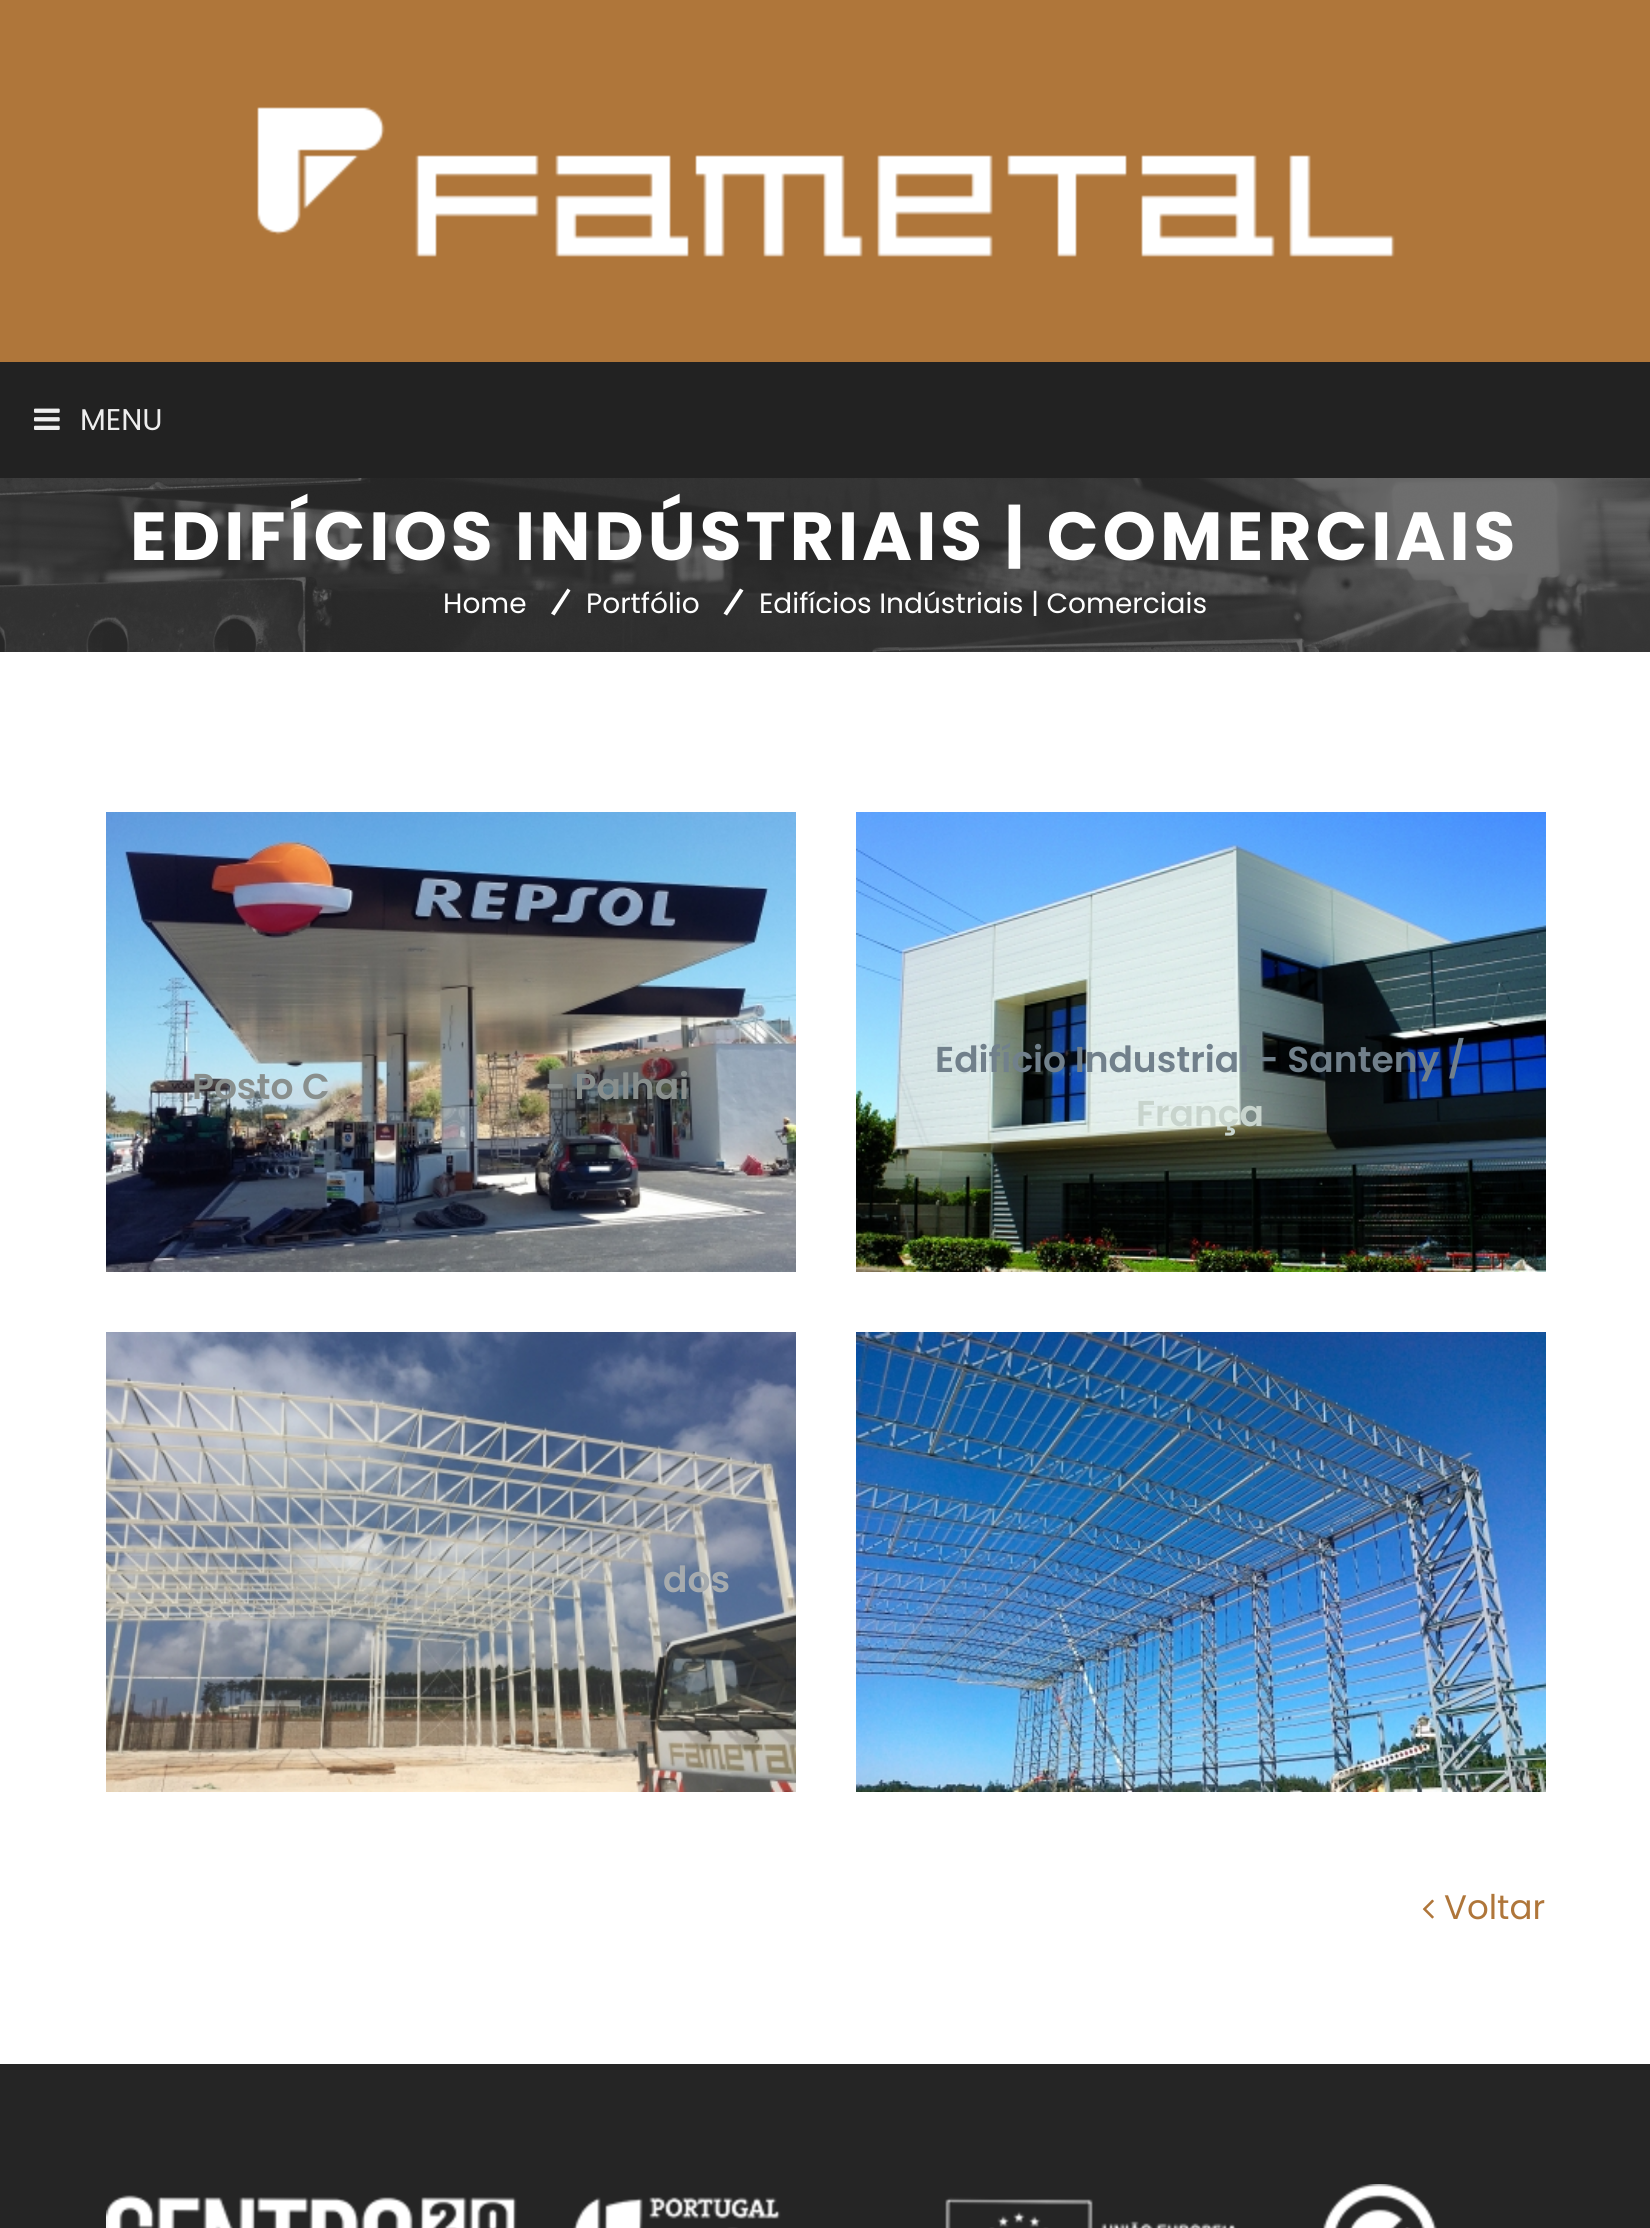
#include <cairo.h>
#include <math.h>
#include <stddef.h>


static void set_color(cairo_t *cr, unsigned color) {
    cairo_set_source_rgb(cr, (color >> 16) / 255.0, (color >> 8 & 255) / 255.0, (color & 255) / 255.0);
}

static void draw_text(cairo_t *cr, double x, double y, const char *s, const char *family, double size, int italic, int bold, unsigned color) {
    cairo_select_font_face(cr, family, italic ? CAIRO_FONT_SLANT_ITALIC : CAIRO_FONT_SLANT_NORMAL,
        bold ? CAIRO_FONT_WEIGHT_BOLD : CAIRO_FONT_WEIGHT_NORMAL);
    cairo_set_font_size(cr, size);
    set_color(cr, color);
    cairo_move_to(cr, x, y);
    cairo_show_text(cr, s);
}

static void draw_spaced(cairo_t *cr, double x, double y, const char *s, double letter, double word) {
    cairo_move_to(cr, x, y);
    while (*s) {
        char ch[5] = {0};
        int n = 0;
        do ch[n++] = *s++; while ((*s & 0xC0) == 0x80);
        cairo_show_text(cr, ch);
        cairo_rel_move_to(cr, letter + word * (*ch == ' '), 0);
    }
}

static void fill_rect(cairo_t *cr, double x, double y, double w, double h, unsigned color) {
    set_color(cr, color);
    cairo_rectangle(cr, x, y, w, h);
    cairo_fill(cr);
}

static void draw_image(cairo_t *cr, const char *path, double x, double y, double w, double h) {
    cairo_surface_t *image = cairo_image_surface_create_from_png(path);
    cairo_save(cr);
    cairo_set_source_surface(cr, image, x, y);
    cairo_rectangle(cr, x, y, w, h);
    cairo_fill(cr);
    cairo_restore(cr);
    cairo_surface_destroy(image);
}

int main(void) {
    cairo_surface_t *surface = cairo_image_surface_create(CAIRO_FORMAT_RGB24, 1650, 2228);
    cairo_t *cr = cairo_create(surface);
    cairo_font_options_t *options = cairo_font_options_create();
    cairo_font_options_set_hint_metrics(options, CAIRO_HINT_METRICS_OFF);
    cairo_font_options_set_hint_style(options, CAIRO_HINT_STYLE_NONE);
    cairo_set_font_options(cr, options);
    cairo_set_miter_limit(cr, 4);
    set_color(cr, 0xFFFFFF);
    cairo_paint(cr);
    fill_rect(cr, 0, 0, 1650, 362, 0xAF763A);
    draw_image(cr, "assets/img1.png", 257, 107, 1138, 150);
    fill_rect(cr, 0, 362, 1650, 116, 0x222222);
    draw_image(cr, "assets/img2.png", 34, 408, 26, 22);
    draw_text(cr, 80, 430, "MENU", "Poppins", 30, 0, 0, 0xEEEEEE);
    draw_image(cr, "assets/img3.png", 0, 478, 1650, 174);
    cairo_select_font_face(cr, "Poppins", CAIRO_FONT_SLANT_NORMAL, CAIRO_FONT_WEIGHT_BOLD);
    cairo_set_font_size(cr, 68);
    set_color(cr, 0xFFFFFF);
    draw_spaced(cr, 130, 560, "EDIFÍCIOS INDÚSTRIAIS | COMERCIAIS", 4, 0);
    draw_text(cr, 443, 613, "Home", "Poppins", 28, 0, 0, 0xFFFFFF);
    cairo_new_path(cr);
    cairo_move_to(cr, 567.5, 588.5);
    cairo_line_to(cr, 570.5, 590.5);
    cairo_line_to(cr, 554.5, 615.5);
    cairo_line_to(cr, 551, 613.5);
    cairo_close_path(cr);
    cairo_fill(cr);
    draw_text(cr, 586, 613, "Portfólio", "Poppins", 28, 0, 0, 0xFFFFFF);
    cairo_new_path(cr);
    cairo_move_to(cr, 740, 588.5);
    cairo_line_to(cr, 743.5, 590.5);
    cairo_line_to(cr, 727, 615.5);
    cairo_line_to(cr, 723.5, 613.5);
    cairo_close_path(cr);
    cairo_fill(cr);
    draw_text(cr, 759, 613, "Edifícios Indústriais | Comerciais", "Poppins", 28, 0, 0, 0xFFFFFF);
    draw_image(cr, "assets/img4.png", 106, 812, 690, 460);
    draw_text(cr, 192, 1099, "Posto C", "Poppins SemiBold", 36, 0, 0, 0x898F8D);
    draw_text(cr, 545, 1099, "- Palhai", "Poppins SemiBold", 36, 0, 0, 0x898F8D);
    draw_image(cr, "assets/img5.png", 856, 812, 690, 460);
    draw_text(cr, 935, 1072, "Edifício Industrial - Santeny /", "Poppins SemiBold", 36, 0, 0, 0x71808B);
    draw_text(cr, 1136, 1126, "França", "Poppins SemiBold", 36, 0, 0, 0xC8D4CD);
    draw_image(cr, "assets/img6.png", 106, 1332, 690, 460);
    draw_text(cr, 663, 1592, "dos", "Poppins SemiBold", 36, 0, 0, 0xA6ABAE);
    draw_image(cr, "assets/img7.png", 856, 1332, 690, 460);
    draw_image(cr, "assets/img8.png", 1422, 1899, 12, 20);
    draw_text(cr, 1444, 1919, "Voltar", "Poppins", 34, 0, 0, 0xAF763A);
    fill_rect(cr, 0, 2064, 1650, 164, 0x252525);
    draw_image(cr, "assets/img9.png", 106, 2195, 1130, 33);
    draw_image(cr, "assets/img10.png", 1323, 2184, 114, 44);
    cairo_surface_write_to_png(surface, "output.png");
    cairo_font_options_destroy(options);
    cairo_destroy(cr);
    cairo_surface_destroy(surface);
    return 0;
}
